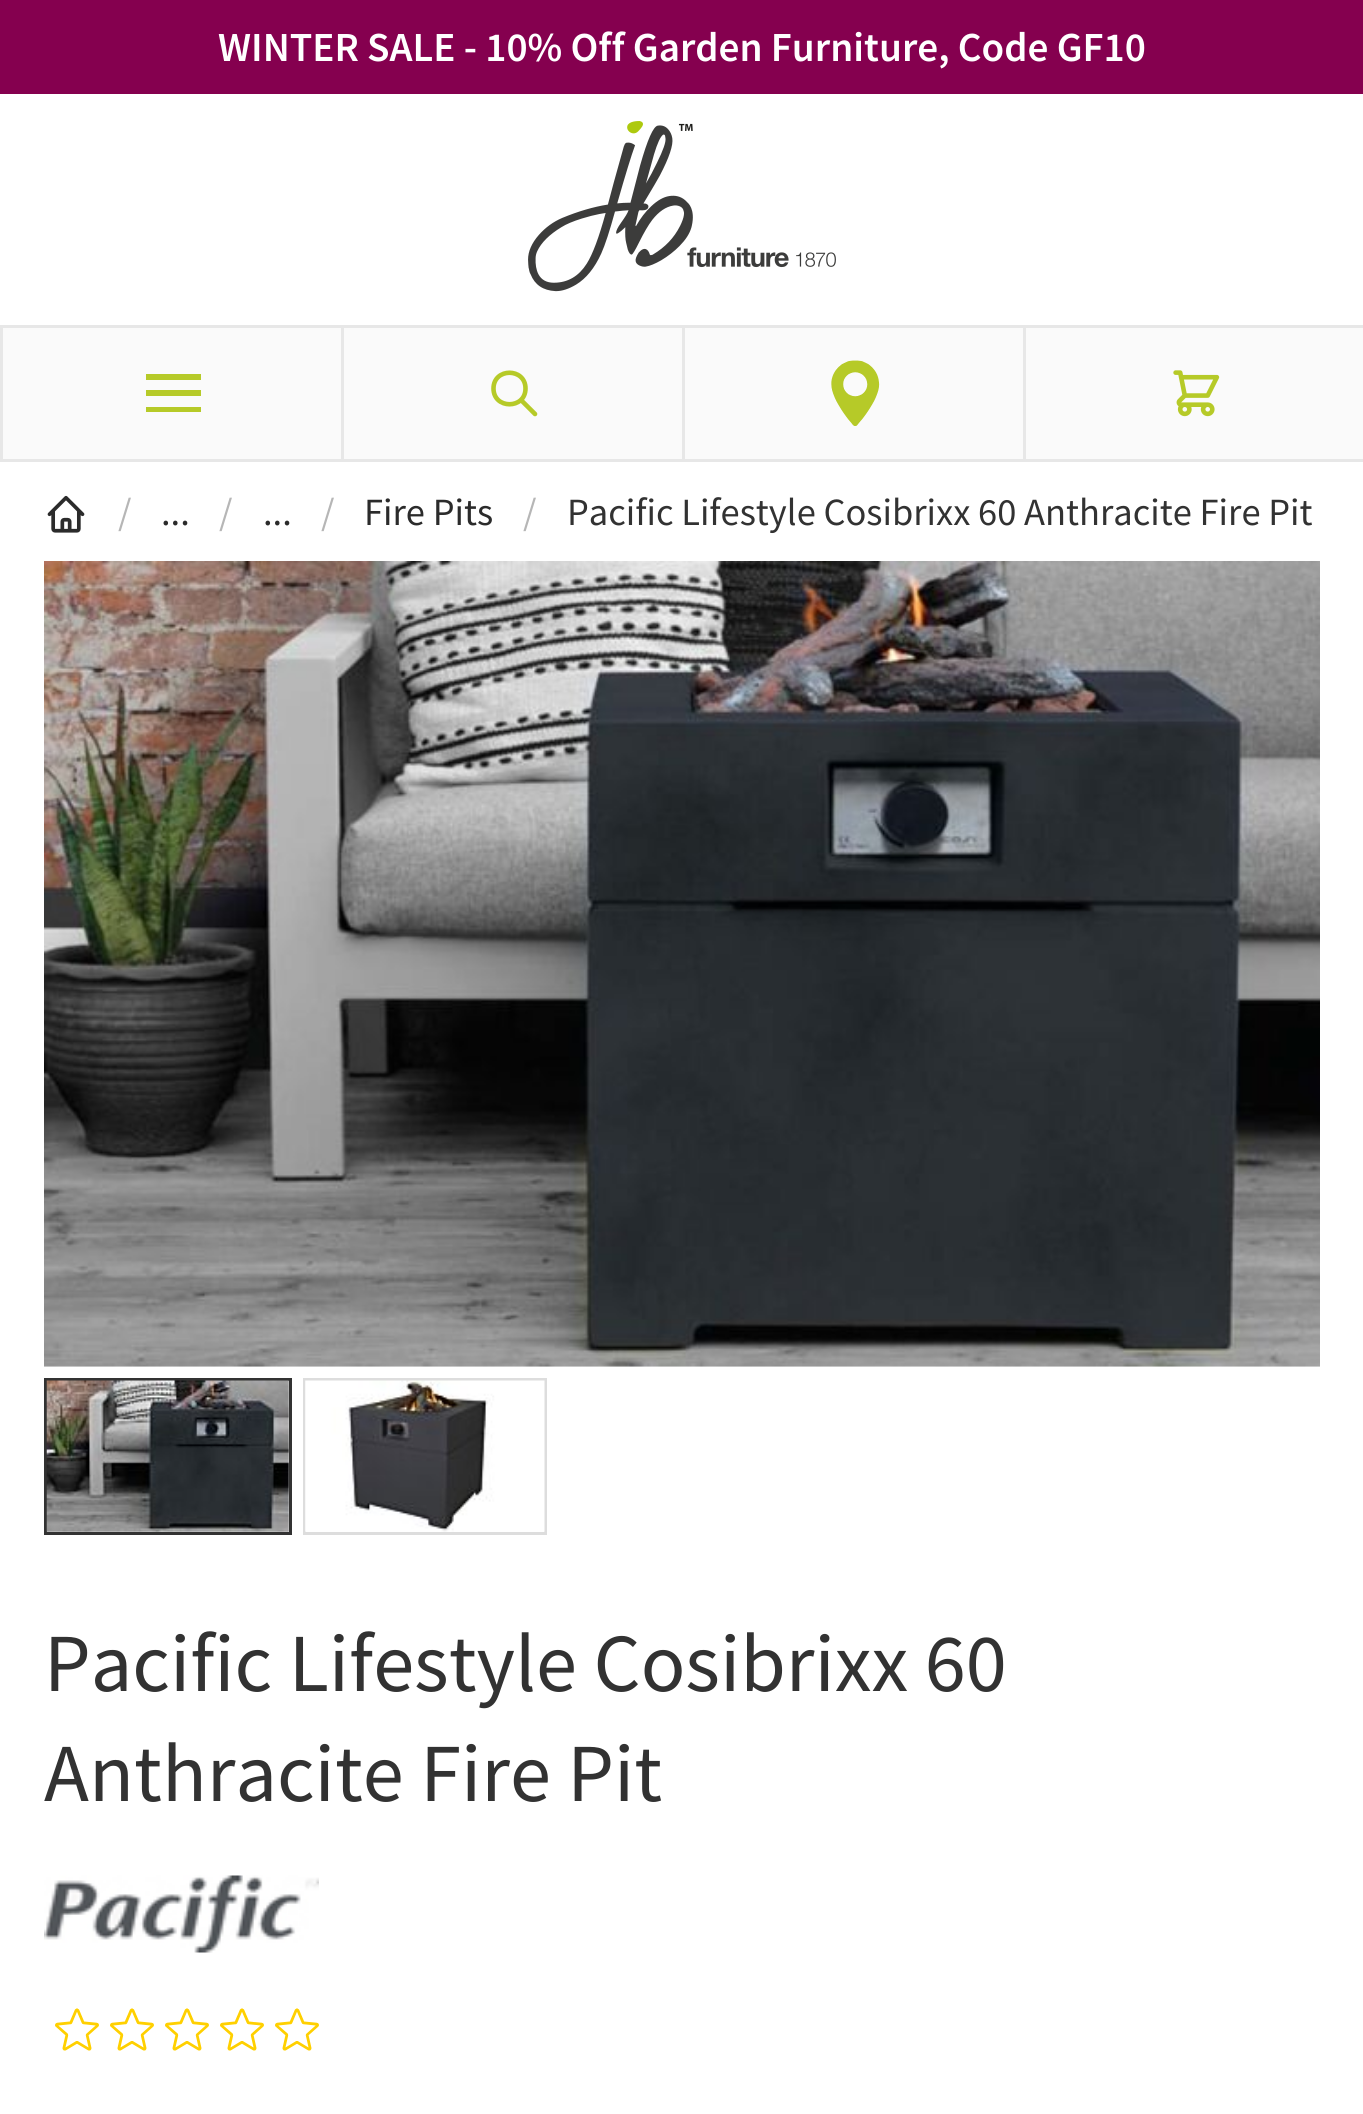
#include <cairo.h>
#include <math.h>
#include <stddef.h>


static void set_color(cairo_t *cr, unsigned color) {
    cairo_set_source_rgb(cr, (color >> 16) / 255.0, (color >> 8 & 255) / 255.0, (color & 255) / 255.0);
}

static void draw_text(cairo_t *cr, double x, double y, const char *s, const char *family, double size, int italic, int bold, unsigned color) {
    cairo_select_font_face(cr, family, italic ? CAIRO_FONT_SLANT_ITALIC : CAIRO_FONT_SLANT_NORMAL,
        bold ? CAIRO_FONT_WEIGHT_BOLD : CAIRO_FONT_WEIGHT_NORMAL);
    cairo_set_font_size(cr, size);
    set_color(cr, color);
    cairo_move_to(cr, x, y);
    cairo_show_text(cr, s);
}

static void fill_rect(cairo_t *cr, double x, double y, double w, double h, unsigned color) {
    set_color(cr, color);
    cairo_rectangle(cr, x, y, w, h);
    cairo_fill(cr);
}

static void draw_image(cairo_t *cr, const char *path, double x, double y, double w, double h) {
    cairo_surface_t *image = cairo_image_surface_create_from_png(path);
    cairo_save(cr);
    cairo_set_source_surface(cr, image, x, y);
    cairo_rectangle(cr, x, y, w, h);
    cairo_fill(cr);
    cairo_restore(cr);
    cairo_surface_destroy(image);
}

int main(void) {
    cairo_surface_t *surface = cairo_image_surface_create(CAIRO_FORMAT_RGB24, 1363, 2114);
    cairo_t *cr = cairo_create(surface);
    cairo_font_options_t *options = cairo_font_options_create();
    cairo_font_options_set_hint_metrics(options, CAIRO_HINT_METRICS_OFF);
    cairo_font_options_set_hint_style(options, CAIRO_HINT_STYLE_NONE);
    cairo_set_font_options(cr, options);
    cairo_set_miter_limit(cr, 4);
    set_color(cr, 0xFFFFFF);
    cairo_paint(cr);
    fill_rect(cr, 0, 0, 1363, 94, 0x85004F);
    draw_text(cr, 218, 61, "WINTER SALE - 10% Off Garden Furniture, Code GF10", "Source Sans Pro SemiBold", 41.25, 0, 0, 0xFFFFFF);
    draw_image(cr, "assets/img1.png", 528, 121, 308, 171);
    fill_rect(cr, 3, 328, 338, 131, 0xFAFAFA);
    fill_rect(cr, 0, 325, 1363, 3, 0xE7E7E7);
    fill_rect(cr, 0, 459, 1363, 3, 0xE7E7E7);
    fill_rect(cr, 0, 325, 3, 137, 0xE7E7E7);
    set_color(cr, 0xB6CA28);
    cairo_new_path(cr);
    cairo_move_to(cr, 146, 374);
    cairo_line_to(cr, 201, 374);
    cairo_line_to(cr, 201, 380);
    cairo_line_to(cr, 146, 380);
    cairo_close_path(cr);
    cairo_move_to(cr, 146, 390);
    cairo_line_to(cr, 201, 390);
    cairo_line_to(cr, 201, 396);
    cairo_line_to(cr, 146, 396);
    cairo_close_path(cr);
    cairo_move_to(cr, 146, 407);
    cairo_line_to(cr, 201, 407);
    cairo_line_to(cr, 201, 412);
    cairo_line_to(cr, 146, 412);
    cairo_close_path(cr);
    cairo_fill(cr);
    fill_rect(cr, 344, 328, 338, 131, 0xFAFAFA);
    fill_rect(cr, 341, 325, 3, 137, 0xE7E7E7);
    cairo_new_path(cr);
    cairo_move_to(cr, 535, 414);
    cairo_line_to(cr, 521, 400);
    cairo_move_to(cr, 525.5, 388.5);
    cairo_curve_to(cr, 525.5, 409.5, 493.5, 409.5, 493.5, 388.5);
    cairo_curve_to(cr, 493.5, 367.5, 525.5, 367.5, 525.5, 388.5);
    cairo_close_path(cr);
    set_color(cr, 0xB6CA28);
    cairo_set_line_width(cr, 4.6);
    cairo_set_line_cap(cr, CAIRO_LINE_CAP_ROUND);
    cairo_set_line_join(cr, CAIRO_LINE_JOIN_ROUND);
    cairo_stroke(cr);
    fill_rect(cr, 685, 328, 338, 131, 0xFAFAFA);
    fill_rect(cr, 682, 325, 3, 137, 0xE7E7E7);
    draw_image(cr, "assets/img2.png", 831, 360, 49, 66);
    fill_rect(cr, 1026, 328, 337, 131, 0xFAFAFA);
    fill_rect(cr, 1023, 325, 3, 137, 0xE7E7E7);
    draw_image(cr, "assets/img3.png", 1173, 370, 47, 47);
    draw_image(cr, "assets/img4.png", 47, 495, 38, 38);
    draw_text(cr, 118, 525, "/", "Source Sans Pro", 38.5, 0, 0, 0xB6B6B6);
    draw_text(cr, 161, 525, "...", "Source Sans Pro", 38.5, 0, 0, 0x2B2B2B);
    draw_text(cr, 219, 525, "/", "Source Sans Pro", 38.5, 0, 0, 0xB6B6B6);
    draw_text(cr, 263, 525, "...", "Source Sans Pro", 38.5, 0, 0, 0x2B2B2B);
    draw_text(cr, 321, 525, "/", "Source Sans Pro", 38.5, 0, 0, 0xB6B6B6);
    draw_text(cr, 364, 525, "Fire Pits", "Source Sans Pro", 38.5, 0, 0, 0x2B2B2B);
    draw_text(cr, 523, 525, "/", "Source Sans Pro", 38.5, 0, 0, 0xB6B6B6);
    draw_text(cr, 567, 525, "Pacific Lifestyle Cosibrixx 60 Anthracite Fire Pit", "Source Sans Pro", 38.5, 0, 0, 0x323232);
    draw_image(cr, "assets/img5.png", 44, 561, 1276, 806);
    cairo_rectangle(cr, 45.5, 1379.5, 245, 154);
    cairo_set_line_width(cr, 3);
    cairo_set_line_cap(cr, CAIRO_LINE_CAP_BUTT);
    cairo_set_line_join(cr, CAIRO_LINE_JOIN_MITER);
    cairo_stroke(cr);
    draw_image(cr, "assets/img6.png", 46, 1380, 243, 152);
    cairo_rectangle(cr, 304.5, 1379.5, 241, 154);
    set_color(cr, 0xDDDDDD);
    cairo_stroke(cr);
    draw_image(cr, "assets/img7.png", 305, 1380, 240, 152);
    draw_text(cr, 44, 1691, "Pacific Lifestyle Cosibrixx 60", "Source Sans Pro", 82.5, 0, 0, 0x323232);
    draw_text(cr, 44, 1801, "Anthracite Fire Pit", "Source Sans Pro", 82.5, 0, 0, 0x323232);
    draw_image(cr, "assets/img8.png", 44, 1875, 275, 78);
    draw_image(cr, "assets/img9.png", 55, 2008, 44, 43);
    draw_image(cr, "assets/img9.png", 110, 2008, 44, 43);
    draw_image(cr, "assets/img9.png", 165, 2008, 44, 43);
    draw_image(cr, "assets/img10.png", 220, 2008, 44, 43);
    draw_image(cr, "assets/img9.png", 275, 2008, 44, 43);
    cairo_surface_write_to_png(surface, "output.png");
    cairo_font_options_destroy(options);
    cairo_destroy(cr);
    cairo_surface_destroy(surface);
    return 0;
}
